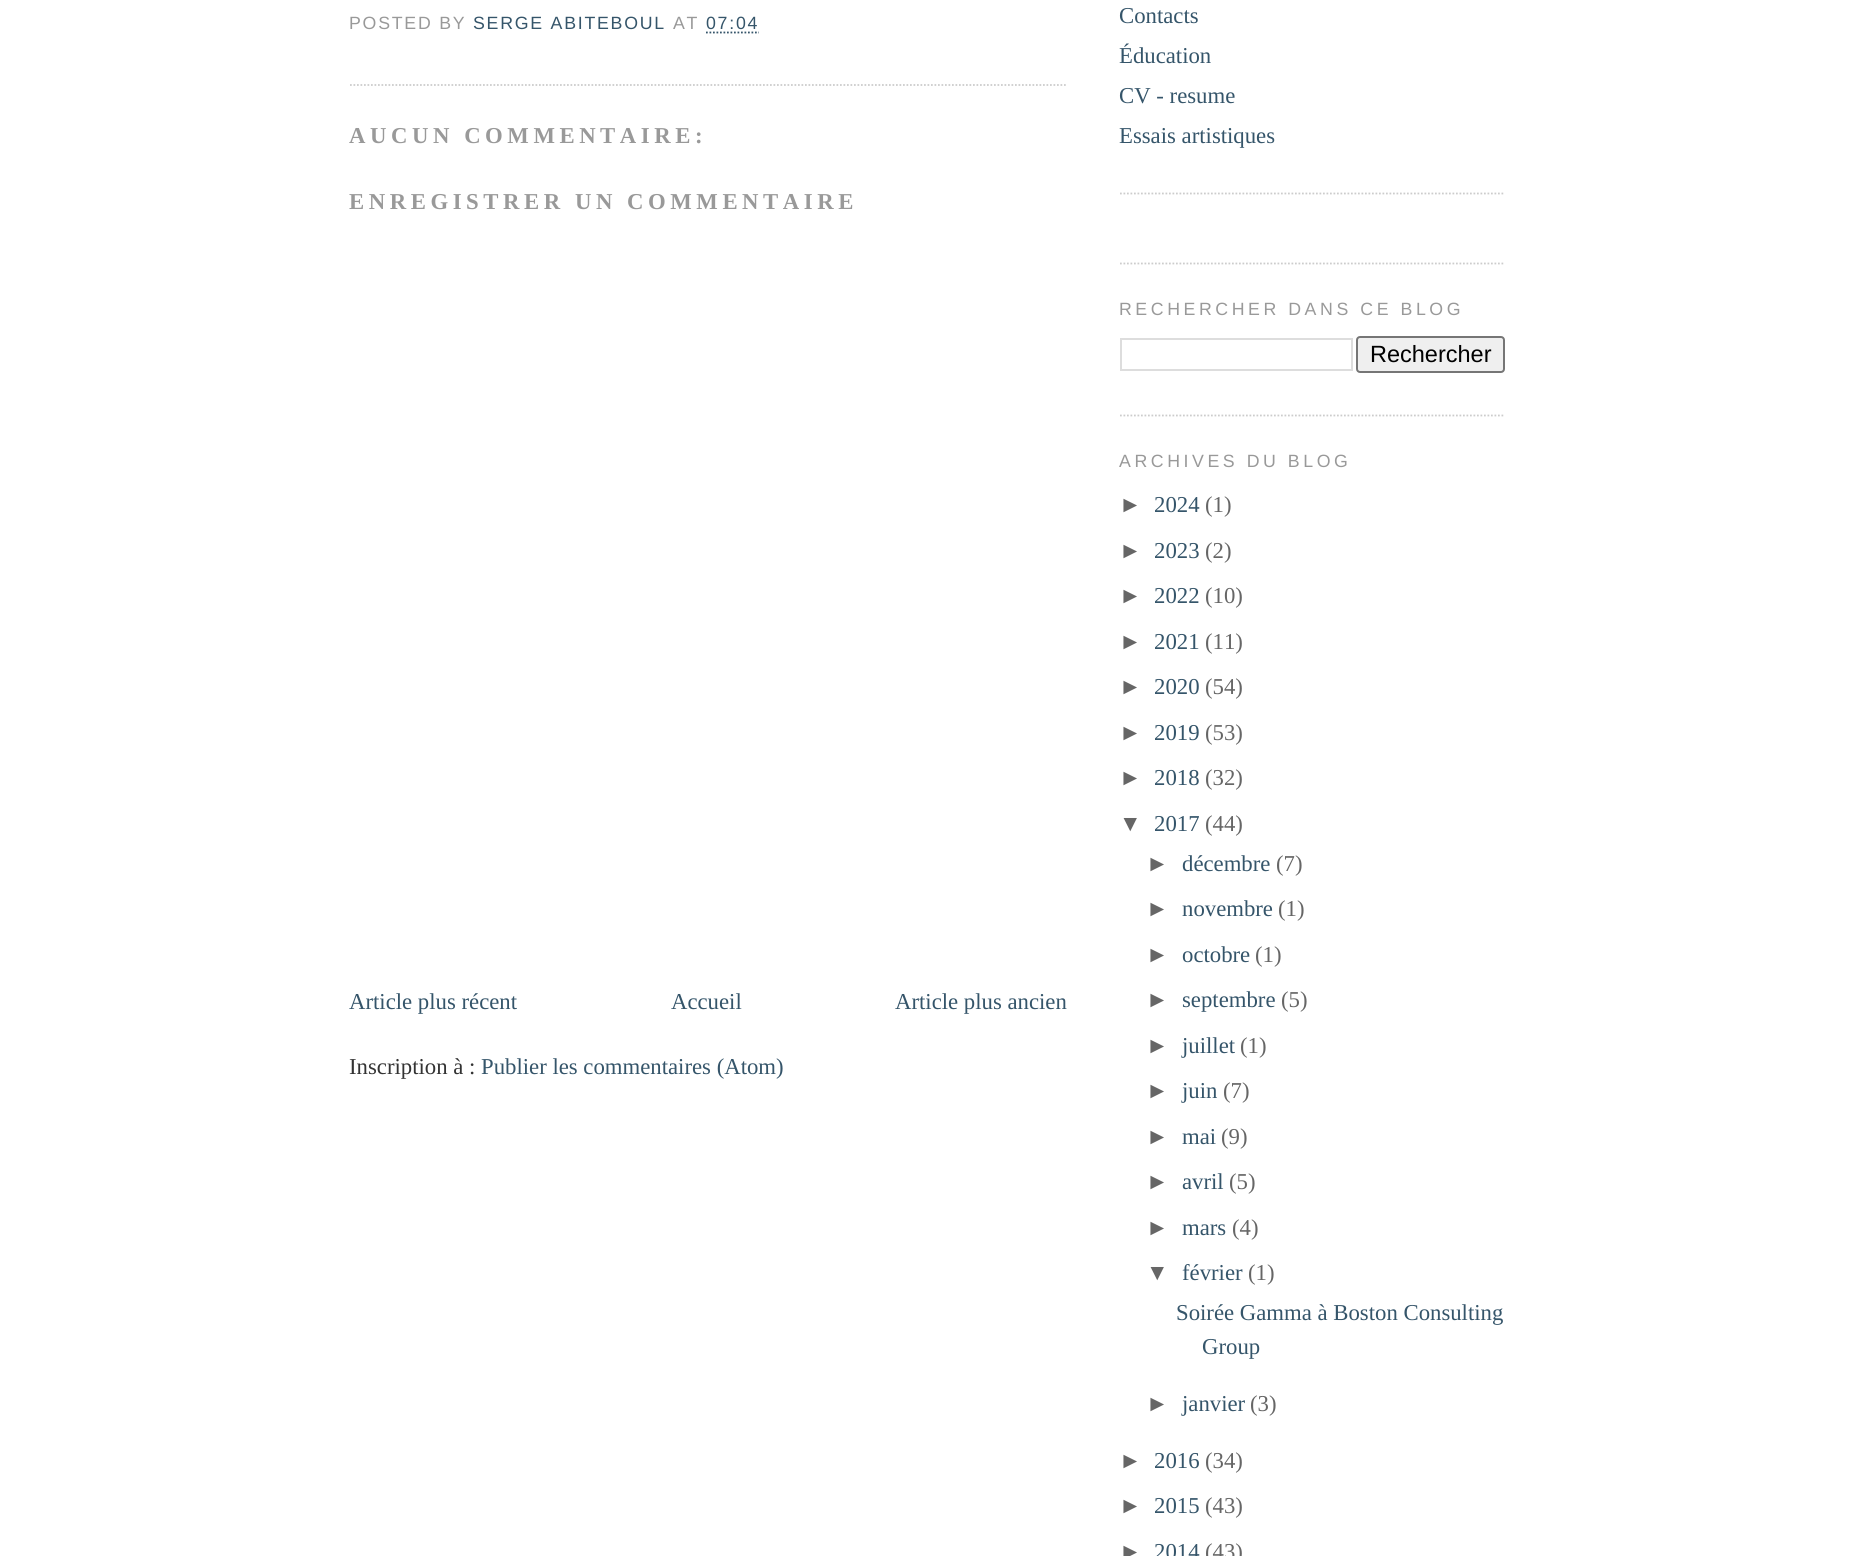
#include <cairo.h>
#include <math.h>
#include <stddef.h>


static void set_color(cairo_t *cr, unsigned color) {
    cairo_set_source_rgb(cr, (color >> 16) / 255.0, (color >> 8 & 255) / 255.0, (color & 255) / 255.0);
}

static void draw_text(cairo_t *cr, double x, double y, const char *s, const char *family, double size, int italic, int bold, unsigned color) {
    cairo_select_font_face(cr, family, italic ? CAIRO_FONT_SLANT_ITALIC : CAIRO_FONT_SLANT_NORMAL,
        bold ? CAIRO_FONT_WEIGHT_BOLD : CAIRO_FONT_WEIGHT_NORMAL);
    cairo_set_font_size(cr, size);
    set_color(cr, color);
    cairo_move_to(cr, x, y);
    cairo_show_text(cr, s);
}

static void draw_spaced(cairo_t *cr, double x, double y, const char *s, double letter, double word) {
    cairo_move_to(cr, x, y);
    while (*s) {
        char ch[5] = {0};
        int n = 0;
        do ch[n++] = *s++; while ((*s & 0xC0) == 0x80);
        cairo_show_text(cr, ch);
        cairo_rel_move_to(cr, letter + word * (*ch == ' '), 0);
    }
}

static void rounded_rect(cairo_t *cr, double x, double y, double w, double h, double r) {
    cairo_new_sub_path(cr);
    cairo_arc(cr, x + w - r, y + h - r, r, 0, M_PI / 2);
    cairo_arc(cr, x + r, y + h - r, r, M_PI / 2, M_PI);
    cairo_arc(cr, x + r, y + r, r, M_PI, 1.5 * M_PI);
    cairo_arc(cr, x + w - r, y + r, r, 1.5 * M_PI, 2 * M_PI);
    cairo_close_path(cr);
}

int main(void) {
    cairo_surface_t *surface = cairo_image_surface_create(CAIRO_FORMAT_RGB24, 1853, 1556);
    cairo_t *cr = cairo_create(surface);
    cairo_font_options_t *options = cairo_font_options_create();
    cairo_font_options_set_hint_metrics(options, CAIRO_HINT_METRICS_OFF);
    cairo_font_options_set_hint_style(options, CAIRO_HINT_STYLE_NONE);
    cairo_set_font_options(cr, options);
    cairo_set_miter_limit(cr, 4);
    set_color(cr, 0xFFFFFF);
    cairo_paint(cr);
    cairo_new_path(cr);
    cairo_move_to(cr, 350, 85);
    cairo_line_to(cr, 1067.5, 85);
    set_color(cr, 0xCCCCCC);
    cairo_set_line_width(cr, 1.8);
    cairo_set_dash(cr, (double[]){1.75, 1.75}, 2, 0);
    cairo_stroke(cr);
    cairo_select_font_face(cr, "Liberation Sans", CAIRO_FONT_SLANT_NORMAL, CAIRO_FONT_WEIGHT_NORMAL);
    cairo_set_font_size(cr, 17.75);
    set_color(cr, 0x999999);
    draw_spaced(cr, 349, 29, "POSTED BY", 1.75, 0);
    set_color(cr, 0x35556A);
    draw_spaced(cr, 473, 29, "SERGE ABITEBOUL", 1.75, 0);
    set_color(cr, 0x999999);
    draw_spaced(cr, 673, 29, "AT", 1.75, 0);
    set_color(cr, 0x35556A);
    draw_spaced(cr, 706, 29, "07:04", 1.75, 0);
    cairo_new_path(cr);
    cairo_move_to(cr, 706, 32.5);
    cairo_line_to(cr, 759, 32.5);
    cairo_stroke(cr);
    cairo_select_font_face(cr, "Liberation Serif", CAIRO_FONT_SLANT_NORMAL, CAIRO_FONT_WEIGHT_BOLD);
    cairo_set_font_size(cr, 22.75);
    set_color(cr, 0x999999);
    draw_spaced(cr, 349, 143, "AUCUN COMMENTAIRE:", 4.55, 0);
    draw_spaced(cr, 349, 209, "ENREGISTRER UN COMMENTAIRE", 4.55, 0);
    draw_text(cr, 349, 1009, "Article plus récent", "Liberation Serif", 22.75, 0, 0, 0x35556A);
    draw_text(cr, 671, 1009, "Accueil", "Liberation Serif", 22.75, 0, 0, 0x35556A);
    draw_text(cr, 895, 1009, "Article plus ancien", "Liberation Serif", 22.75, 0, 0, 0x35556A);
    draw_text(cr, 349, 1074, "Inscription à :", "Liberation Serif", 22.75, 0, 0, 0x333333);
    draw_text(cr, 481, 1074, "Publier les commentaires (Atom)", "Liberation Serif", 22.75, 0, 0, 0x35556A);
    cairo_new_path(cr);
    cairo_move_to(cr, 1120, 193.5);
    cairo_line_to(cr, 1505, 193.5);
    set_color(cr, 0xCCCCCC);
    cairo_stroke(cr);
    draw_text(cr, 1119, 23, "Contacts", "Liberation Serif", 22.75, 0, 0, 0x35556A);
    draw_text(cr, 1119, 63, "Éducation", "Liberation Serif", 22.75, 0, 0, 0x35556A);
    draw_text(cr, 1119, 103, "CV - resume", "Liberation Serif", 22.75, 0, 0, 0x35556A);
    draw_text(cr, 1119, 143, "Essais artistiques", "Liberation Serif", 22.75, 0, 0, 0x35556A);
    cairo_new_path(cr);
    cairo_move_to(cr, 1120, 263.5);
    cairo_line_to(cr, 1505, 263.5);
    set_color(cr, 0xCCCCCC);
    cairo_stroke(cr);
    cairo_new_path(cr);
    cairo_move_to(cr, 1120, 415.5);
    cairo_line_to(cr, 1505, 415.5);
    cairo_stroke(cr);
    cairo_select_font_face(cr, "Liberation Sans", CAIRO_FONT_SLANT_NORMAL, CAIRO_FONT_WEIGHT_NORMAL);
    cairo_set_font_size(cr, 17.75);
    set_color(cr, 0x999999);
    draw_spaced(cr, 1119, 315, "RECHERCHER DANS CE BLOG", 3.55, 0);
    cairo_rectangle(cr, 1121, 339, 231, 31);
    set_color(cr, 0xDDDDDD);
    cairo_set_line_width(cr, 2);
    cairo_set_dash(cr, NULL, 0, 0);
    cairo_stroke(cr);
    set_color(cr, 0xEFEFEF);
    rounded_rect(cr, 1357, 337, 147, 35, 3);
    cairo_fill_preserve(cr);
    set_color(cr, 0x767676);
    cairo_stroke(cr);
    draw_text(cr, 1370, 362, "Rechercher", "Liberation Sans", 23.5, 0, 0, 0x000000);
    cairo_set_font_size(cr, 17.75);
    set_color(cr, 0x999999);
    draw_spaced(cr, 1119, 467, "ARCHIVES DU BLOG", 3.55, 0);
    draw_text(cr, 1119, 512, "►", "Liberation Sans", 22.75, 0, 0, 0x666666);
    draw_text(cr, 1154, 512, "2024", "Liberation Serif", 22.75, 0, 0, 0x35556A);
    draw_text(cr, 1205, 512, "(1)", "Liberation Serif", 22.75, 0, 0, 0x666666);
    draw_text(cr, 1119, 558, "►", "Liberation Sans", 22.75, 0, 0, 0x666666);
    draw_text(cr, 1154, 558, "2023", "Liberation Serif", 22.75, 0, 0, 0x35556A);
    draw_text(cr, 1205, 558, "(2)", "Liberation Serif", 22.75, 0, 0, 0x666666);
    draw_text(cr, 1119, 603, "►", "Liberation Sans", 22.75, 0, 0, 0x666666);
    draw_text(cr, 1154, 603, "2022", "Liberation Serif", 22.75, 0, 0, 0x35556A);
    draw_text(cr, 1205, 603, "(10)", "Liberation Serif", 22.75, 0, 0, 0x666666);
    draw_text(cr, 1119, 649, "►", "Liberation Sans", 22.75, 0, 0, 0x666666);
    draw_text(cr, 1154, 649, "2021", "Liberation Serif", 22.75, 0, 0, 0x35556A);
    draw_text(cr, 1205, 649, "(11)", "Liberation Serif", 22.75, 0, 0, 0x666666);
    draw_text(cr, 1119, 694, "►", "Liberation Sans", 22.75, 0, 0, 0x666666);
    draw_text(cr, 1154, 694, "2020", "Liberation Serif", 22.75, 0, 0, 0x35556A);
    draw_text(cr, 1205, 694, "(54)", "Liberation Serif", 22.75, 0, 0, 0x666666);
    draw_text(cr, 1119, 740, "►", "Liberation Sans", 22.75, 0, 0, 0x666666);
    draw_text(cr, 1154, 740, "2019", "Liberation Serif", 22.75, 0, 0, 0x35556A);
    draw_text(cr, 1205, 740, "(53)", "Liberation Serif", 22.75, 0, 0, 0x666666);
    draw_text(cr, 1119, 785, "►", "Liberation Sans", 22.75, 0, 0, 0x666666);
    draw_text(cr, 1154, 785, "2018", "Liberation Serif", 22.75, 0, 0, 0x35556A);
    draw_text(cr, 1205, 785, "(32)", "Liberation Serif", 22.75, 0, 0, 0x666666);
    draw_text(cr, 1119, 831, "▼", "Liberation Sans", 22.75, 0, 0, 0x666666);
    draw_text(cr, 1154, 831, "2017", "Liberation Serif", 22.75, 0, 0, 0x35556A);
    draw_text(cr, 1205, 831, "(44)", "Liberation Serif", 22.75, 0, 0, 0x666666);
    draw_text(cr, 1146, 871, "►", "Liberation Sans", 22.75, 0, 0, 0x666666);
    draw_text(cr, 1182, 871, "décembre", "Liberation Serif", 22.75, 0, 0, 0x35556A);
    draw_text(cr, 1276, 871, "(7)", "Liberation Serif", 22.75, 0, 0, 0x666666);
    draw_text(cr, 1146, 916, "►", "Liberation Sans", 22.75, 0, 0, 0x666666);
    draw_text(cr, 1182, 916, "novembre", "Liberation Serif", 22.75, 0, 0, 0x35556A);
    draw_text(cr, 1278, 916, "(1)", "Liberation Serif", 22.75, 0, 0, 0x666666);
    draw_text(cr, 1146, 962, "►", "Liberation Sans", 22.75, 0, 0, 0x666666);
    draw_text(cr, 1182, 962, "octobre", "Liberation Serif", 22.75, 0, 0, 0x35556A);
    draw_text(cr, 1255, 962, "(1)", "Liberation Serif", 22.75, 0, 0, 0x666666);
    draw_text(cr, 1146, 1007, "►", "Liberation Sans", 22.75, 0, 0, 0x666666);
    draw_text(cr, 1182, 1007, "septembre", "Liberation Serif", 22.75, 0, 0, 0x35556A);
    draw_text(cr, 1281, 1007, "(5)", "Liberation Serif", 22.75, 0, 0, 0x666666);
    draw_text(cr, 1146, 1053, "►", "Liberation Sans", 22.75, 0, 0, 0x666666);
    draw_text(cr, 1182, 1053, "juillet", "Liberation Serif", 22.75, 0, 0, 0x35556A);
    draw_text(cr, 1240, 1053, "(1)", "Liberation Serif", 22.75, 0, 0, 0x666666);
    draw_text(cr, 1146, 1098, "►", "Liberation Sans", 22.75, 0, 0, 0x666666);
    draw_text(cr, 1182, 1098, "juin", "Liberation Serif", 22.75, 0, 0, 0x35556A);
    draw_text(cr, 1223, 1098, "(7)", "Liberation Serif", 22.75, 0, 0, 0x666666);
    draw_text(cr, 1146, 1144, "►", "Liberation Sans", 22.75, 0, 0, 0x666666);
    draw_text(cr, 1182, 1144, "mai", "Liberation Serif", 22.75, 0, 0, 0x35556A);
    draw_text(cr, 1221, 1144, "(9)", "Liberation Serif", 22.75, 0, 0, 0x666666);
    draw_text(cr, 1146, 1189, "►", "Liberation Sans", 22.75, 0, 0, 0x666666);
    draw_text(cr, 1182, 1189, "avril", "Liberation Serif", 22.75, 0, 0, 0x35556A);
    draw_text(cr, 1229, 1189, "(5)", "Liberation Serif", 22.75, 0, 0, 0x666666);
    draw_text(cr, 1146, 1235, "►", "Liberation Sans", 22.75, 0, 0, 0x666666);
    draw_text(cr, 1182, 1235, "mars", "Liberation Serif", 22.75, 0, 0, 0x35556A);
    draw_text(cr, 1232, 1235, "(4)", "Liberation Serif", 22.75, 0, 0, 0x666666);
    draw_text(cr, 1146, 1280, "▼", "Liberation Sans", 22.75, 0, 0, 0x666666);
    draw_text(cr, 1182, 1280, "février", "Liberation Serif", 22.75, 0, 0, 0x35556A);
    draw_text(cr, 1248, 1280, "(1)", "Liberation Serif", 22.75, 0, 0, 0x666666);
    draw_text(cr, 1176, 1320, "Soirée Gamma à Boston Consulting", "Liberation Serif", 22.75, 0, 0, 0x35556A);
    draw_text(cr, 1202, 1354, "Group", "Liberation Serif", 22.75, 0, 0, 0x35556A);
    draw_text(cr, 1146, 1411, "►", "Liberation Sans", 22.75, 0, 0, 0x666666);
    draw_text(cr, 1182, 1411, "janvier", "Liberation Serif", 22.75, 0, 0, 0x35556A);
    draw_text(cr, 1250, 1411, "(3)", "Liberation Serif", 22.75, 0, 0, 0x666666);
    draw_text(cr, 1119, 1468, "►", "Liberation Sans", 22.75, 0, 0, 0x666666);
    draw_text(cr, 1154, 1468, "2016", "Liberation Serif", 22.75, 0, 0, 0x35556A);
    draw_text(cr, 1205, 1468, "(34)", "Liberation Serif", 22.75, 0, 0, 0x666666);
    draw_text(cr, 1119, 1513, "►", "Liberation Sans", 22.75, 0, 0, 0x666666);
    draw_text(cr, 1154, 1513, "2015", "Liberation Serif", 22.75, 0, 0, 0x35556A);
    draw_text(cr, 1205, 1513, "(43)", "Liberation Serif", 22.75, 0, 0, 0x666666);
    draw_text(cr, 1119, 1559, "►", "Liberation Sans", 22.75, 0, 0, 0x666666);
    draw_text(cr, 1154, 1559, "2014", "Liberation Serif", 22.75, 0, 0, 0x35556A);
    draw_text(cr, 1205, 1559, "(43)", "Liberation Serif", 22.75, 0, 0, 0x666666);
    cairo_surface_write_to_png(surface, "output.png");
    cairo_font_options_destroy(options);
    cairo_destroy(cr);
    cairo_surface_destroy(surface);
    return 0;
}
